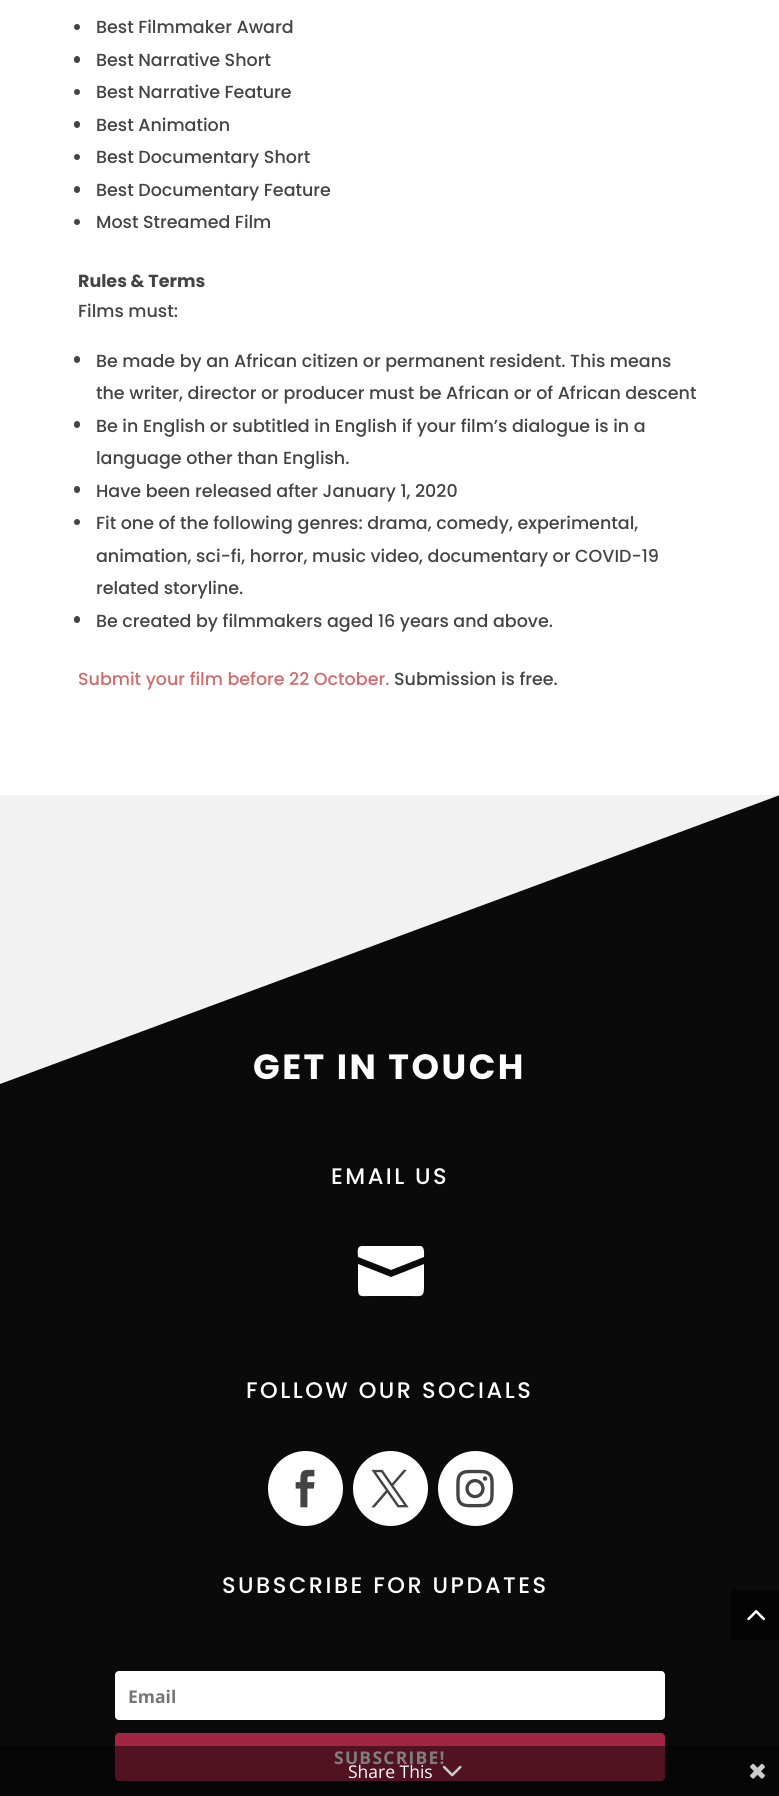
#include <cairo.h>
#include <math.h>
#include <stddef.h>


static void set_color(cairo_t *cr, unsigned color) {
    cairo_set_source_rgb(cr, (color >> 16) / 255.0, (color >> 8 & 255) / 255.0, (color & 255) / 255.0);
}

static void draw_text(cairo_t *cr, double x, double y, const char *s, const char *family, double size, int italic, int bold, unsigned color) {
    cairo_select_font_face(cr, family, italic ? CAIRO_FONT_SLANT_ITALIC : CAIRO_FONT_SLANT_NORMAL,
        bold ? CAIRO_FONT_WEIGHT_BOLD : CAIRO_FONT_WEIGHT_NORMAL);
    cairo_set_font_size(cr, size);
    set_color(cr, color);
    cairo_move_to(cr, x, y);
    cairo_show_text(cr, s);
}

static void draw_spaced(cairo_t *cr, double x, double y, const char *s, double letter, double word) {
    cairo_move_to(cr, x, y);
    while (*s) {
        char ch[5] = {0};
        int n = 0;
        do ch[n++] = *s++; while ((*s & 0xC0) == 0x80);
        cairo_show_text(cr, ch);
        cairo_rel_move_to(cr, letter + word * (*ch == ' '), 0);
    }
}

static void fill_rect(cairo_t *cr, double x, double y, double w, double h, unsigned color) {
    set_color(cr, color);
    cairo_rectangle(cr, x, y, w, h);
    cairo_fill(cr);
}

static void rounded_rect(cairo_t *cr, double x, double y, double w, double h, double r) {
    cairo_new_sub_path(cr);
    cairo_arc(cr, x + w - r, y + h - r, r, 0, M_PI / 2);
    cairo_arc(cr, x + r, y + h - r, r, M_PI / 2, M_PI);
    cairo_arc(cr, x + r, y + r, r, M_PI, 1.5 * M_PI);
    cairo_arc(cr, x + w - r, y + r, r, 1.5 * M_PI, 2 * M_PI);
    cairo_close_path(cr);
}

static void draw_image(cairo_t *cr, const char *path, double x, double y, double w, double h) {
    cairo_surface_t *image = cairo_image_surface_create_from_png(path);
    cairo_save(cr);
    cairo_set_source_surface(cr, image, x, y);
    cairo_rectangle(cr, x, y, w, h);
    cairo_fill(cr);
    cairo_restore(cr);
    cairo_surface_destroy(image);
}

int main(void) {
    cairo_surface_t *surface = cairo_image_surface_create(CAIRO_FORMAT_RGB24, 779, 1796);
    cairo_t *cr = cairo_create(surface);
    cairo_font_options_t *options = cairo_font_options_create();
    cairo_font_options_set_hint_metrics(options, CAIRO_HINT_METRICS_OFF);
    cairo_font_options_set_hint_style(options, CAIRO_HINT_STYLE_NONE);
    cairo_set_font_options(cr, options);
    cairo_set_miter_limit(cr, 4);
    set_color(cr, 0xFFFFFF);
    cairo_paint(cr);
    set_color(cr, 0x444444);
    cairo_arc(cr, 77, 27, 3, 0, 2 * M_PI);
    cairo_fill(cr);
    draw_text(cr, 96, 33, "Best Filmmaker Award", "Poppins Medium", 17.5, 0, 0, 0x444444);
    rounded_rect(cr, 74, 56, 6, 7, 3);
    cairo_fill(cr);
    draw_text(cr, 96, 66, "Best Narrative Short", "Poppins Medium", 17.5, 0, 0, 0x444444);
    cairo_new_path(cr);
    cairo_arc(cr, 77, 92, 3, 0, 2 * M_PI);
    cairo_fill(cr);
    draw_text(cr, 96, 98, "Best Narrative Feature", "Poppins Medium", 17.5, 0, 0, 0x444444);
    rounded_rect(cr, 74, 121, 6, 7, 3);
    cairo_fill(cr);
    draw_text(cr, 96, 131, "Best Animation", "Poppins Medium", 17.5, 0, 0, 0x444444);
    cairo_new_path(cr);
    cairo_arc(cr, 77, 157, 3, 0, 2 * M_PI);
    cairo_fill(cr);
    draw_text(cr, 96, 163, "Best Documentary Short", "Poppins Medium", 17.5, 0, 0, 0x444444);
    rounded_rect(cr, 74, 186, 6, 7, 3);
    cairo_fill(cr);
    draw_text(cr, 96, 196, "Best Documentary Feature", "Poppins Medium", 17.5, 0, 0, 0x444444);
    cairo_new_path(cr);
    cairo_arc(cr, 77, 222, 3, 0, 2 * M_PI);
    cairo_fill(cr);
    draw_text(cr, 96, 228, "Most Streamed Film", "Poppins Medium", 17.5, 0, 0, 0x444444);
    draw_text(cr, 78, 287, "Rules & Terms", "Poppins", 17.5, 0, 1, 0x444444);
    draw_text(cr, 78, 317, "Films must:", "Poppins Medium", 17.5, 0, 0, 0x444444);
    rounded_rect(cr, 74, 356, 6, 7, 3);
    cairo_fill(cr);
    draw_text(cr, 96, 367, "Be made by an African citizen or permanent resident. This means", "Poppins Medium", 17.5, 0, 0, 0x444444);
    draw_text(cr, 96, 399, "the writer, director or producer must be African or of African descent", "Poppins Medium", 17.5, 0, 0, 0x444444);
    rounded_rect(cr, 74, 421, 6, 7, 3);
    cairo_fill(cr);
    draw_text(cr, 96, 432, "Be in English or subtitled in English if your film’s dialogue is in a", "Poppins Medium", 17.5, 0, 0, 0x444444);
    draw_text(cr, 96, 464, "language other than English.", "Poppins Medium", 17.5, 0, 0, 0x444444);
    rounded_rect(cr, 74, 486, 6, 7, 3);
    cairo_fill(cr);
    draw_text(cr, 96, 497, "Have been released after January 1, 2020", "Poppins Medium", 17.5, 0, 0, 0x444444);
    cairo_new_path(cr);
    cairo_arc(cr, 77, 522, 3, 0, 2 * M_PI);
    cairo_fill(cr);
    draw_text(cr, 96, 529, "Fit one of the following genres: drama, comedy, experimental,", "Poppins Medium", 17.5, 0, 0, 0x444444);
    draw_text(cr, 96, 562, "animation, sci-fi, horror, music video, documentary or COVID-19", "Poppins Medium", 17.5, 0, 0, 0x444444);
    draw_text(cr, 96, 594, "related storyline.", "Poppins Medium", 17.5, 0, 0, 0x444444);
    rounded_rect(cr, 74, 616, 6, 7, 3);
    cairo_fill(cr);
    draw_text(cr, 96, 627, "Be created by filmmakers aged 16 years and above.", "Poppins Medium", 17.5, 0, 0, 0x444444);
    draw_text(cr, 78, 685, "Submit your film before 22 October.", "Poppins Medium", 17.5, 0, 0, 0xD46A6A);
    draw_text(cr, 394, 685, "Submission is free.", "Poppins Medium", 17.5, 0, 0, 0x444444);
    fill_rect(cr, 0, 795, 779, 1001, 0x0A0A0A);
    set_color(cr, 0xF2F2F2);
    cairo_new_path(cr);
    cairo_move_to(cr, 0, 1084);
    cairo_line_to(cr, 0, 795);
    cairo_line_to(cr, 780, 795);
    cairo_close_path(cr);
    cairo_fill(cr);
    cairo_select_font_face(cr, "Poppins", CAIRO_FONT_SLANT_NORMAL, CAIRO_FONT_WEIGHT_BOLD);
    cairo_set_font_size(cr, 35);
    set_color(cr, 0xFFFFFF);
    draw_spaced(cr, 253, 1079, "GET IN TOUCH", 2.5, 0);
    cairo_select_font_face(cr, "Poppins Medium", CAIRO_FONT_SLANT_NORMAL, CAIRO_FONT_WEIGHT_NORMAL);
    cairo_set_font_size(cr, 22.5);
    draw_spaced(cr, 331, 1184, "EMAIL US", 2.5, 0);
    cairo_new_path(cr);
    cairo_move_to(cr, 420, 1246);
    cairo_line_to(cr, 362, 1246);
    cairo_curve_to(cr, 356, 1246, 358, 1254, 358, 1257);
    cairo_line_to(cr, 391, 1270);
    cairo_line_to(cr, 424, 1257);
    cairo_curve_to(cr, 424, 1254, 425, 1246, 420, 1246);
    cairo_close_path(cr);
    cairo_move_to(cr, 358, 1264);
    cairo_line_to(cr, 358, 1287);
    cairo_curve_to(cr, 358, 1298, 360, 1296, 371, 1296);
    cairo_line_to(cr, 410, 1296);
    cairo_curve_to(cr, 421, 1296, 424, 1298, 424, 1287);
    cairo_line_to(cr, 424, 1264);
    cairo_line_to(cr, 391, 1277);
    cairo_close_path(cr);
    cairo_fill(cr);
    draw_spaced(cr, 246, 1398, "FOLLOW OUR SOCIALS", 2.5, 0);
    cairo_new_path(cr);
    cairo_arc(cr, 305.5, 1488.5, 37.5, 0, 2 * M_PI);
    cairo_fill(cr);
    draw_image(cr, "assets/img1.png", 295, 1469, 20, 39);
    cairo_arc(cr, 390.5, 1488.5, 37.5, 0, 2 * M_PI);
    cairo_fill(cr);
    draw_image(cr, "assets/img2.png", 371, 1469, 38, 39);
    cairo_arc(cr, 475.5, 1488.5, 37.5, 0, 2 * M_PI);
    cairo_fill(cr);
    draw_image(cr, "assets/img3.png", 456, 1469, 38, 39);
    draw_spaced(cr, 222, 1593, "SUBSCRIBE FOR UPDATES", 2.5, 0);
    rounded_rect(cr, 115, 1671, 550, 49, 4);
    cairo_fill(cr);
    draw_text(cr, 128, 1703, "Email", "Open Sans", 17.5, 0, 1, 0x757575);
    set_color(cr, 0xA22543);
    rounded_rect(cr, 115, 1733, 550, 48, 4);
    cairo_fill(cr);
    set_color(cr, 0xFFFFFF);
    draw_spaced(cr, 334, 1764, "SUBSCRIBE!", 1.25, 0);
    set_color(cr, 0x060606);
    cairo_new_path(cr);
    cairo_move_to(cr, 736, 1590);
    cairo_line_to(cr, 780, 1590);
    cairo_line_to(cr, 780, 1640);
    cairo_line_to(cr, 736, 1640);
    cairo_curve_to(cr, 732.5, 1640, 730, 1637.5, 730, 1634);
    cairo_line_to(cr, 730, 1596);
    cairo_curve_to(cr, 730, 1592.5, 732.5, 1590, 736, 1590);
    cairo_close_path(cr);
    cairo_fill(cr);
    draw_image(cr, "assets/img4.png", 747, 1610, 18, 11);
    cairo_set_source_rgba(cr, 0, 0, 0, 0.4);
    cairo_new_path(cr);
    cairo_move_to(cr, 736, 1590);
    cairo_line_to(cr, 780, 1590);
    cairo_line_to(cr, 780, 1640);
    cairo_line_to(cr, 736, 1640);
    cairo_curve_to(cr, 732.5, 1640, 730, 1637.5, 730, 1634);
    cairo_line_to(cr, 730, 1596);
    cairo_curve_to(cr, 730, 1592.5, 732.5, 1590, 736, 1590);
    cairo_close_path(cr);
    cairo_fill(cr);
    draw_image(cr, "assets/img5.png", 747, 1610, 18, 11);
    cairo_set_source_rgba(cr, 0, 0, 0, 0.5);
    cairo_rectangle(cr, 0, 1746, 779, 50);
    cairo_fill(cr);
    draw_text(cr, 348, 1778, "Share This", "Open Sans", 17.5, 0, 0, 0xFFFFFF);
    draw_image(cr, "assets/img6.png", 442, 1765, 20, 12);
    draw_image(cr, "assets/img7.png", 750, 1763, 15, 16);
    cairo_surface_write_to_png(surface, "output.png");
    cairo_font_options_destroy(options);
    cairo_destroy(cr);
    cairo_surface_destroy(surface);
    return 0;
}
